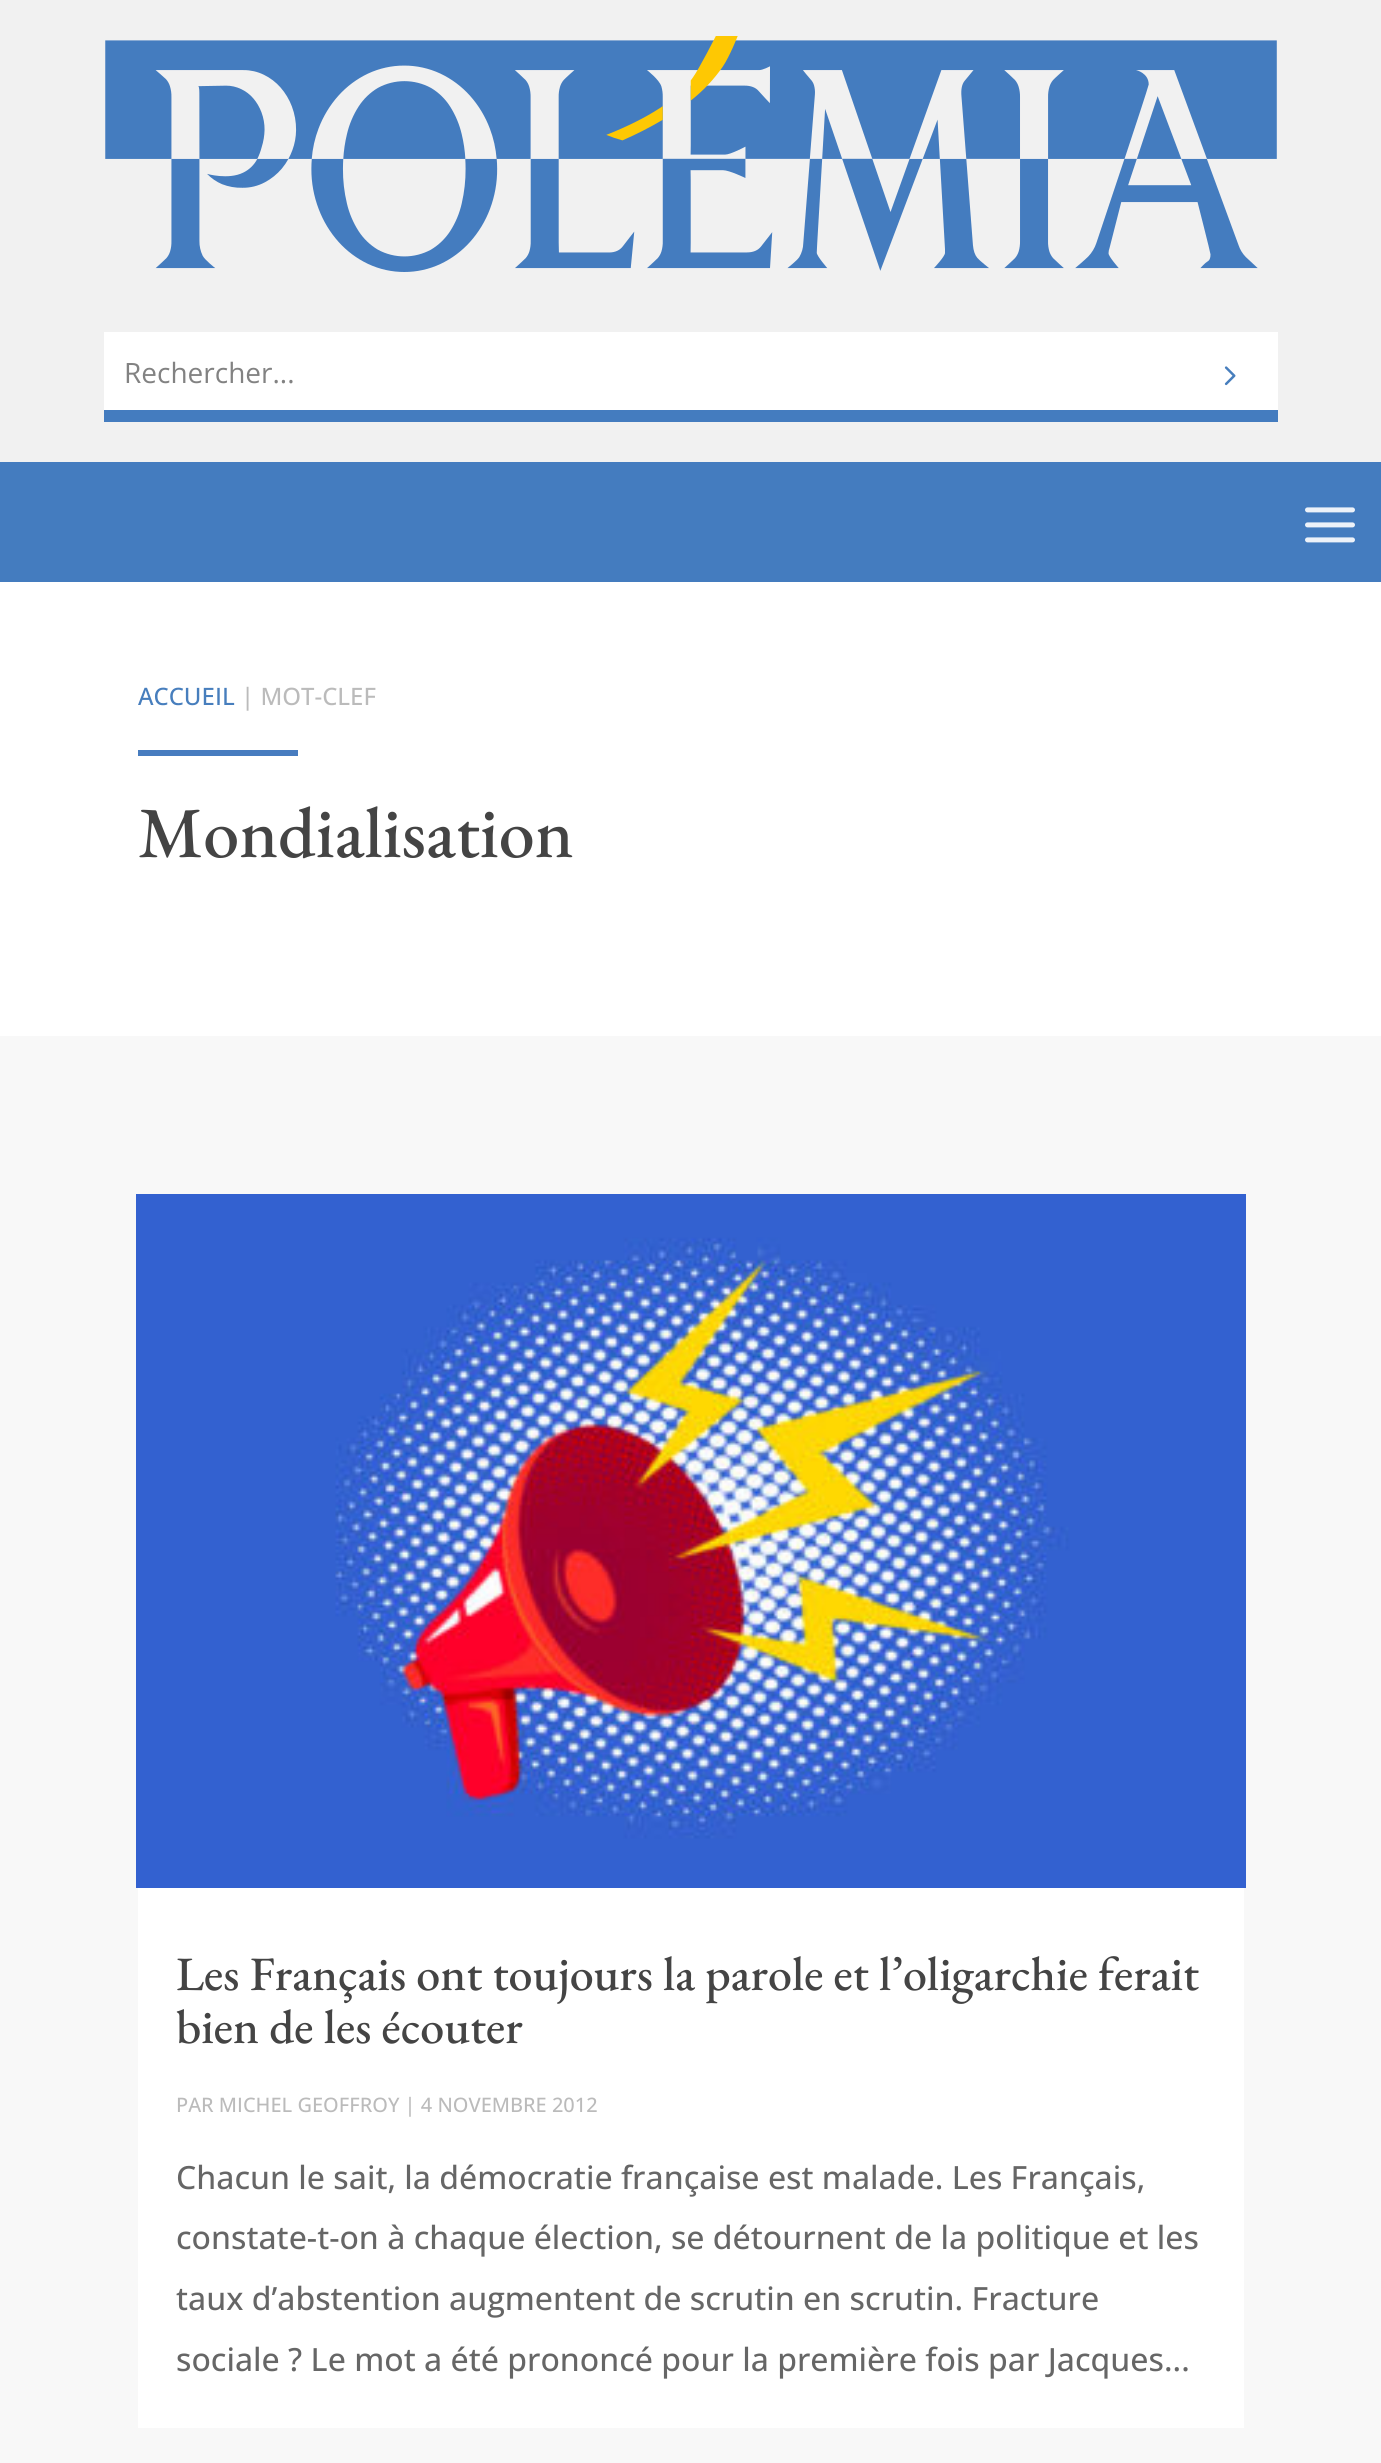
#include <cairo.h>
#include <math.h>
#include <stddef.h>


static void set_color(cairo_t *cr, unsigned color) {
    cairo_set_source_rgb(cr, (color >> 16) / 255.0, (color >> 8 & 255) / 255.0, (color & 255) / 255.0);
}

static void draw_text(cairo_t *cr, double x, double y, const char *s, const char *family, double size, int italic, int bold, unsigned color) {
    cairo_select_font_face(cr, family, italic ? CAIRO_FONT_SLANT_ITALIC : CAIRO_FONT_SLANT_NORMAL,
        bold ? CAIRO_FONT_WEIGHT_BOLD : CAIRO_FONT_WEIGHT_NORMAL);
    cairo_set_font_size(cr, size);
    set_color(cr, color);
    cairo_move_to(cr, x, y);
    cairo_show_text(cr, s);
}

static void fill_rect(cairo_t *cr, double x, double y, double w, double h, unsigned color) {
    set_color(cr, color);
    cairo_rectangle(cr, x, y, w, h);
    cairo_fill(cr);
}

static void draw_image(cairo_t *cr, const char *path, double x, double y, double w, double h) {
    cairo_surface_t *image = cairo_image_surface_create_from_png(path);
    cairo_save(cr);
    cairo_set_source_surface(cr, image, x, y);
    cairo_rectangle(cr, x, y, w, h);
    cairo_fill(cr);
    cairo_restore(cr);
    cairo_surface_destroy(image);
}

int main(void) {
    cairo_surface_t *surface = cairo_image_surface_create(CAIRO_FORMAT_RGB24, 1381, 2463);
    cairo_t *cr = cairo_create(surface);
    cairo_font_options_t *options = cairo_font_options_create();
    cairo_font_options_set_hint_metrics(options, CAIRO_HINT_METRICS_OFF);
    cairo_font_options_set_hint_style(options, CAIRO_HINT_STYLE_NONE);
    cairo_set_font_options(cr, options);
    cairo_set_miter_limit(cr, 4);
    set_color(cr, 0xFFFFFF);
    cairo_paint(cr);
    fill_rect(cr, 0, 0, 1381, 462, 0xF1F1F1);
    draw_image(cr, "assets/img1.png", 105, 36, 1172, 236);
    fill_rect(cr, 104, 410, 1174, 12, 0x447CBF);
    fill_rect(cr, 104, 332, 1174, 78, 0xFFFFFF);
    draw_text(cr, 124, 383, "Rechercher...", "Open Sans", 28, 0, 0, 0x828282);
    draw_image(cr, "assets/img2.png", 1224, 366, 12, 20);
    fill_rect(cr, 0, 462, 1381, 120, 0x447CBF);
    draw_image(cr, "assets/img3.png", 1305, 507, 50, 36);
    draw_text(cr, 138, 705, "ACCUEIL", "Open Sans Medium", 24, 0, 0, 0x477EBD);
    draw_text(cr, 241, 705, "| MOT-CLEF", "Open Sans Medium", 24, 0, 0, 0xBBBBBB);
    fill_rect(cr, 138, 750, 160, 6, 0x477CBF);
    draw_text(cr, 138, 857, "Mondialisation", "EB Garamond Medium", 72, 0, 0, 0x444444);
    fill_rect(cr, 0, 1036, 1381, 1427, 0xF8F8F8);
    fill_rect(cr, 138, 1888, 1106, 540, 0xFFFFFF);
    draw_image(cr, "assets/img4.png", 136, 1194, 1110, 694);
    draw_text(cr, 176, 1990, "Les Français ont toujours la parole et l’oligarchie ferait", "EB Garamond Medium", 48, 0, 0, 0x444444);
    draw_text(cr, 176, 2043, "bien de les écouter", "EB Garamond Medium", 48, 0, 0, 0x444444);
    draw_text(cr, 176, 2112, "PAR MICHEL GEOFFROY | 4 NOVEMBRE 2012", "Open Sans Medium", 20, 0, 0, 0xBBBBBB);
    draw_text(cr, 176, 2189, "Chacun le sait, la démocratie française est malade. Les Français,", "Open Sans Medium", 32, 0, 0, 0x666666);
    draw_text(cr, 176, 2249, "constate-t-on à chaque élection, se détournent de la politique et les", "Open Sans Medium", 32, 0, 0, 0x666666);
    draw_text(cr, 176, 2310, "taux d’abstention augmentent de scrutin en scrutin. Fracture", "Open Sans Medium", 32, 0, 0, 0x666666);
    draw_text(cr, 176, 2371, "sociale ? Le mot a été prononcé pour la première fois par Jacques...", "Open Sans Medium", 32, 0, 0, 0x666666);
    cairo_surface_write_to_png(surface, "output.png");
    cairo_font_options_destroy(options);
    cairo_destroy(cr);
    cairo_surface_destroy(surface);
    return 0;
}
